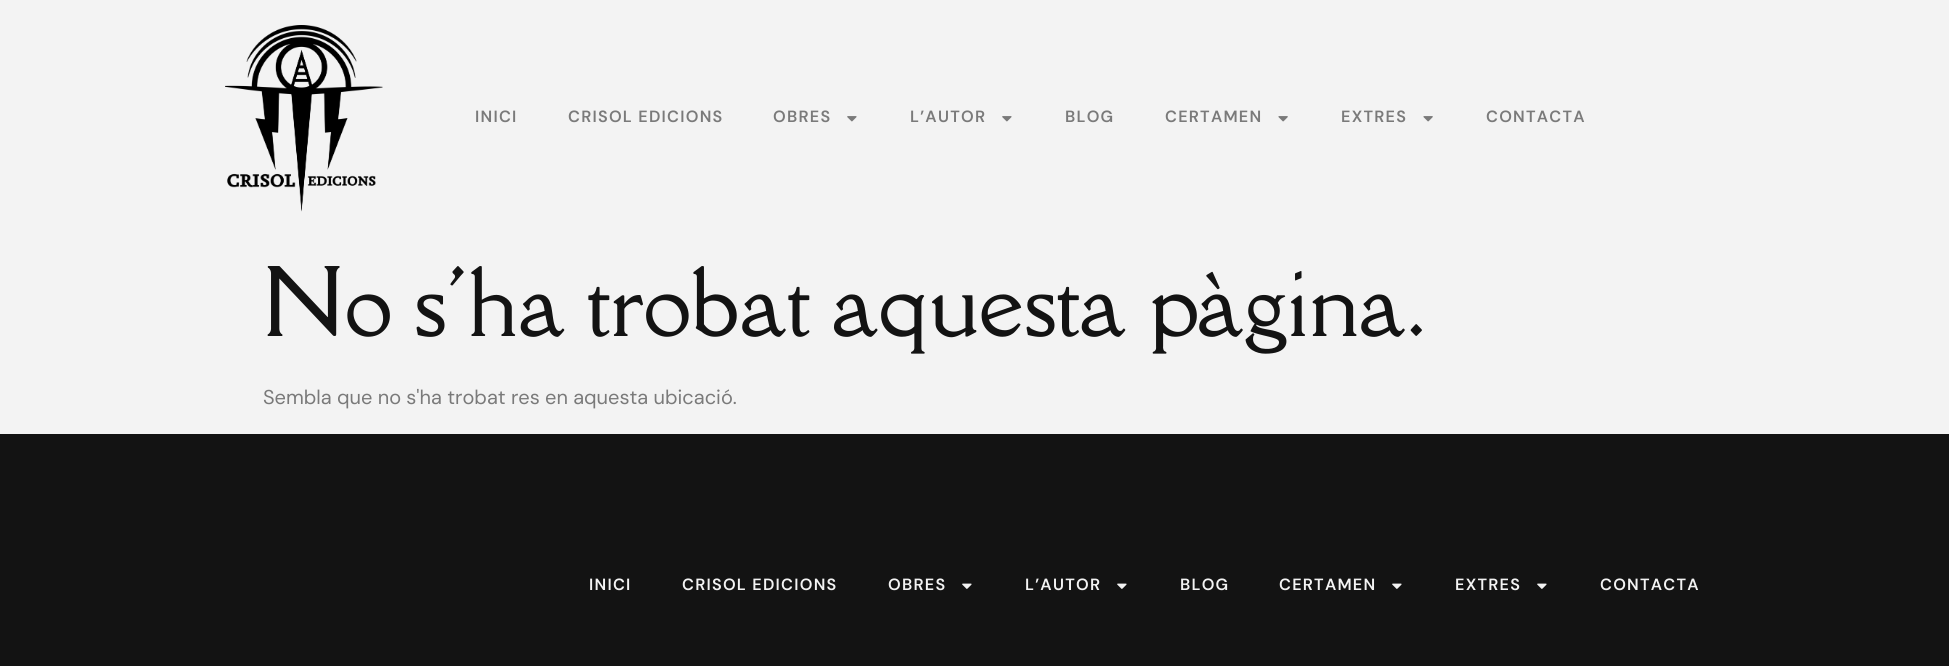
#include <cairo.h>
#include <math.h>
#include <stddef.h>


static void set_color(cairo_t *cr, unsigned color) {
    cairo_set_source_rgb(cr, (color >> 16) / 255.0, (color >> 8 & 255) / 255.0, (color & 255) / 255.0);
}

static void draw_text(cairo_t *cr, double x, double y, const char *s, const char *family, double size, int italic, int bold, unsigned color) {
    cairo_select_font_face(cr, family, italic ? CAIRO_FONT_SLANT_ITALIC : CAIRO_FONT_SLANT_NORMAL,
        bold ? CAIRO_FONT_WEIGHT_BOLD : CAIRO_FONT_WEIGHT_NORMAL);
    cairo_set_font_size(cr, size);
    set_color(cr, color);
    cairo_move_to(cr, x, y);
    cairo_show_text(cr, s);
}

static void draw_spaced(cairo_t *cr, double x, double y, const char *s, double letter, double word) {
    cairo_move_to(cr, x, y);
    while (*s) {
        char ch[5] = {0};
        int n = 0;
        do ch[n++] = *s++; while ((*s & 0xC0) == 0x80);
        cairo_show_text(cr, ch);
        cairo_rel_move_to(cr, letter + word * (*ch == ' '), 0);
    }
}

static void fill_rect(cairo_t *cr, double x, double y, double w, double h, unsigned color) {
    set_color(cr, color);
    cairo_rectangle(cr, x, y, w, h);
    cairo_fill(cr);
}

static void draw_image(cairo_t *cr, const char *path, double x, double y, double w, double h) {
    cairo_surface_t *image = cairo_image_surface_create_from_png(path);
    cairo_save(cr);
    cairo_set_source_surface(cr, image, x, y);
    cairo_rectangle(cr, x, y, w, h);
    cairo_fill(cr);
    cairo_restore(cr);
    cairo_surface_destroy(image);
}

int main(void) {
    cairo_surface_t *surface = cairo_image_surface_create(CAIRO_FORMAT_RGB24, 1949, 666);
    cairo_t *cr = cairo_create(surface);
    cairo_font_options_t *options = cairo_font_options_create();
    cairo_font_options_set_hint_metrics(options, CAIRO_HINT_METRICS_OFF);
    cairo_font_options_set_hint_style(options, CAIRO_HINT_STYLE_NONE);
    cairo_set_font_options(cr, options);
    cairo_set_miter_limit(cr, 4);
    set_color(cr, 0xF3F3F3);
    cairo_paint(cr);
    draw_image(cr, "assets/img1.png", 225, 25, 158, 187);
    cairo_select_font_face(cr, "DM Sans SemiBold", CAIRO_FONT_SLANT_NORMAL, CAIRO_FONT_WEIGHT_NORMAL);
    cairo_set_font_size(cr, 16.25);
    set_color(cr, 0x7A7A7A);
    draw_spaced(cr, 475, 122, "INICI", 1.25, 0);
    draw_spaced(cr, 568, 122, "CRISOL EDICIONS", 1.25, 0);
    draw_spaced(cr, 773, 122, "OBRES", 1.25, 0);
    draw_image(cr, "assets/img2.png", 847, 116, 10, 6);
    draw_spaced(cr, 910, 122, "L’AUTOR", 1.25, 0);
    draw_image(cr, "assets/img2.png", 1002, 116, 10, 6);
    draw_spaced(cr, 1065, 122, "BLOG", 1.25, 0);
    draw_spaced(cr, 1165, 122, "CERTAMEN", 1.25, 0);
    draw_image(cr, "assets/img3.png", 1278, 116, 10, 6);
    draw_spaced(cr, 1341, 122, "EXTRES", 1.25, 0);
    draw_image(cr, "assets/img3.png", 1423, 116, 10, 6);
    draw_spaced(cr, 1486, 122, "CONTACTA", 1.25, 0);
    draw_text(cr, 263, 336, "No s'ha trobat aquesta pàgina.", "Della Respira", 87.5, 0, 0, 0x131313);
    draw_text(cr, 263, 404, "Sembla que no s'ha trobat res en aquesta ubicació.", "DM Sans", 20, 0, 0, 0x7A7A7A);
    fill_rect(cr, 0, 434, 1949, 232, 0x131313);
    cairo_select_font_face(cr, "DM Sans SemiBold", CAIRO_FONT_SLANT_NORMAL, CAIRO_FONT_WEIGHT_NORMAL);
    cairo_set_font_size(cr, 16.25);
    set_color(cr, 0xF3F3F3);
    draw_spaced(cr, 589, 590, "INICI", 1.25, 0);
    draw_spaced(cr, 682, 590, "CRISOL EDICIONS", 1.25, 0);
    draw_spaced(cr, 888, 590, "OBRES", 1.25, 0);
    draw_image(cr, "assets/img4.png", 962, 583, 10, 6);
    draw_spaced(cr, 1025, 590, "L’AUTOR", 1.25, 0);
    draw_image(cr, "assets/img4.png", 1117, 583, 10, 6);
    draw_spaced(cr, 1180, 590, "BLOG", 1.25, 0);
    draw_spaced(cr, 1279, 590, "CERTAMEN", 1.25, 0);
    draw_image(cr, "assets/img4.png", 1392, 583, 10, 6);
    draw_spaced(cr, 1455, 590, "EXTRES", 1.25, 0);
    draw_image(cr, "assets/img4.png", 1537, 583, 10, 6);
    draw_spaced(cr, 1600, 590, "CONTACTA", 1.25, 0);
    cairo_surface_write_to_png(surface, "output.png");
    cairo_font_options_destroy(options);
    cairo_destroy(cr);
    cairo_surface_destroy(surface);
    return 0;
}
